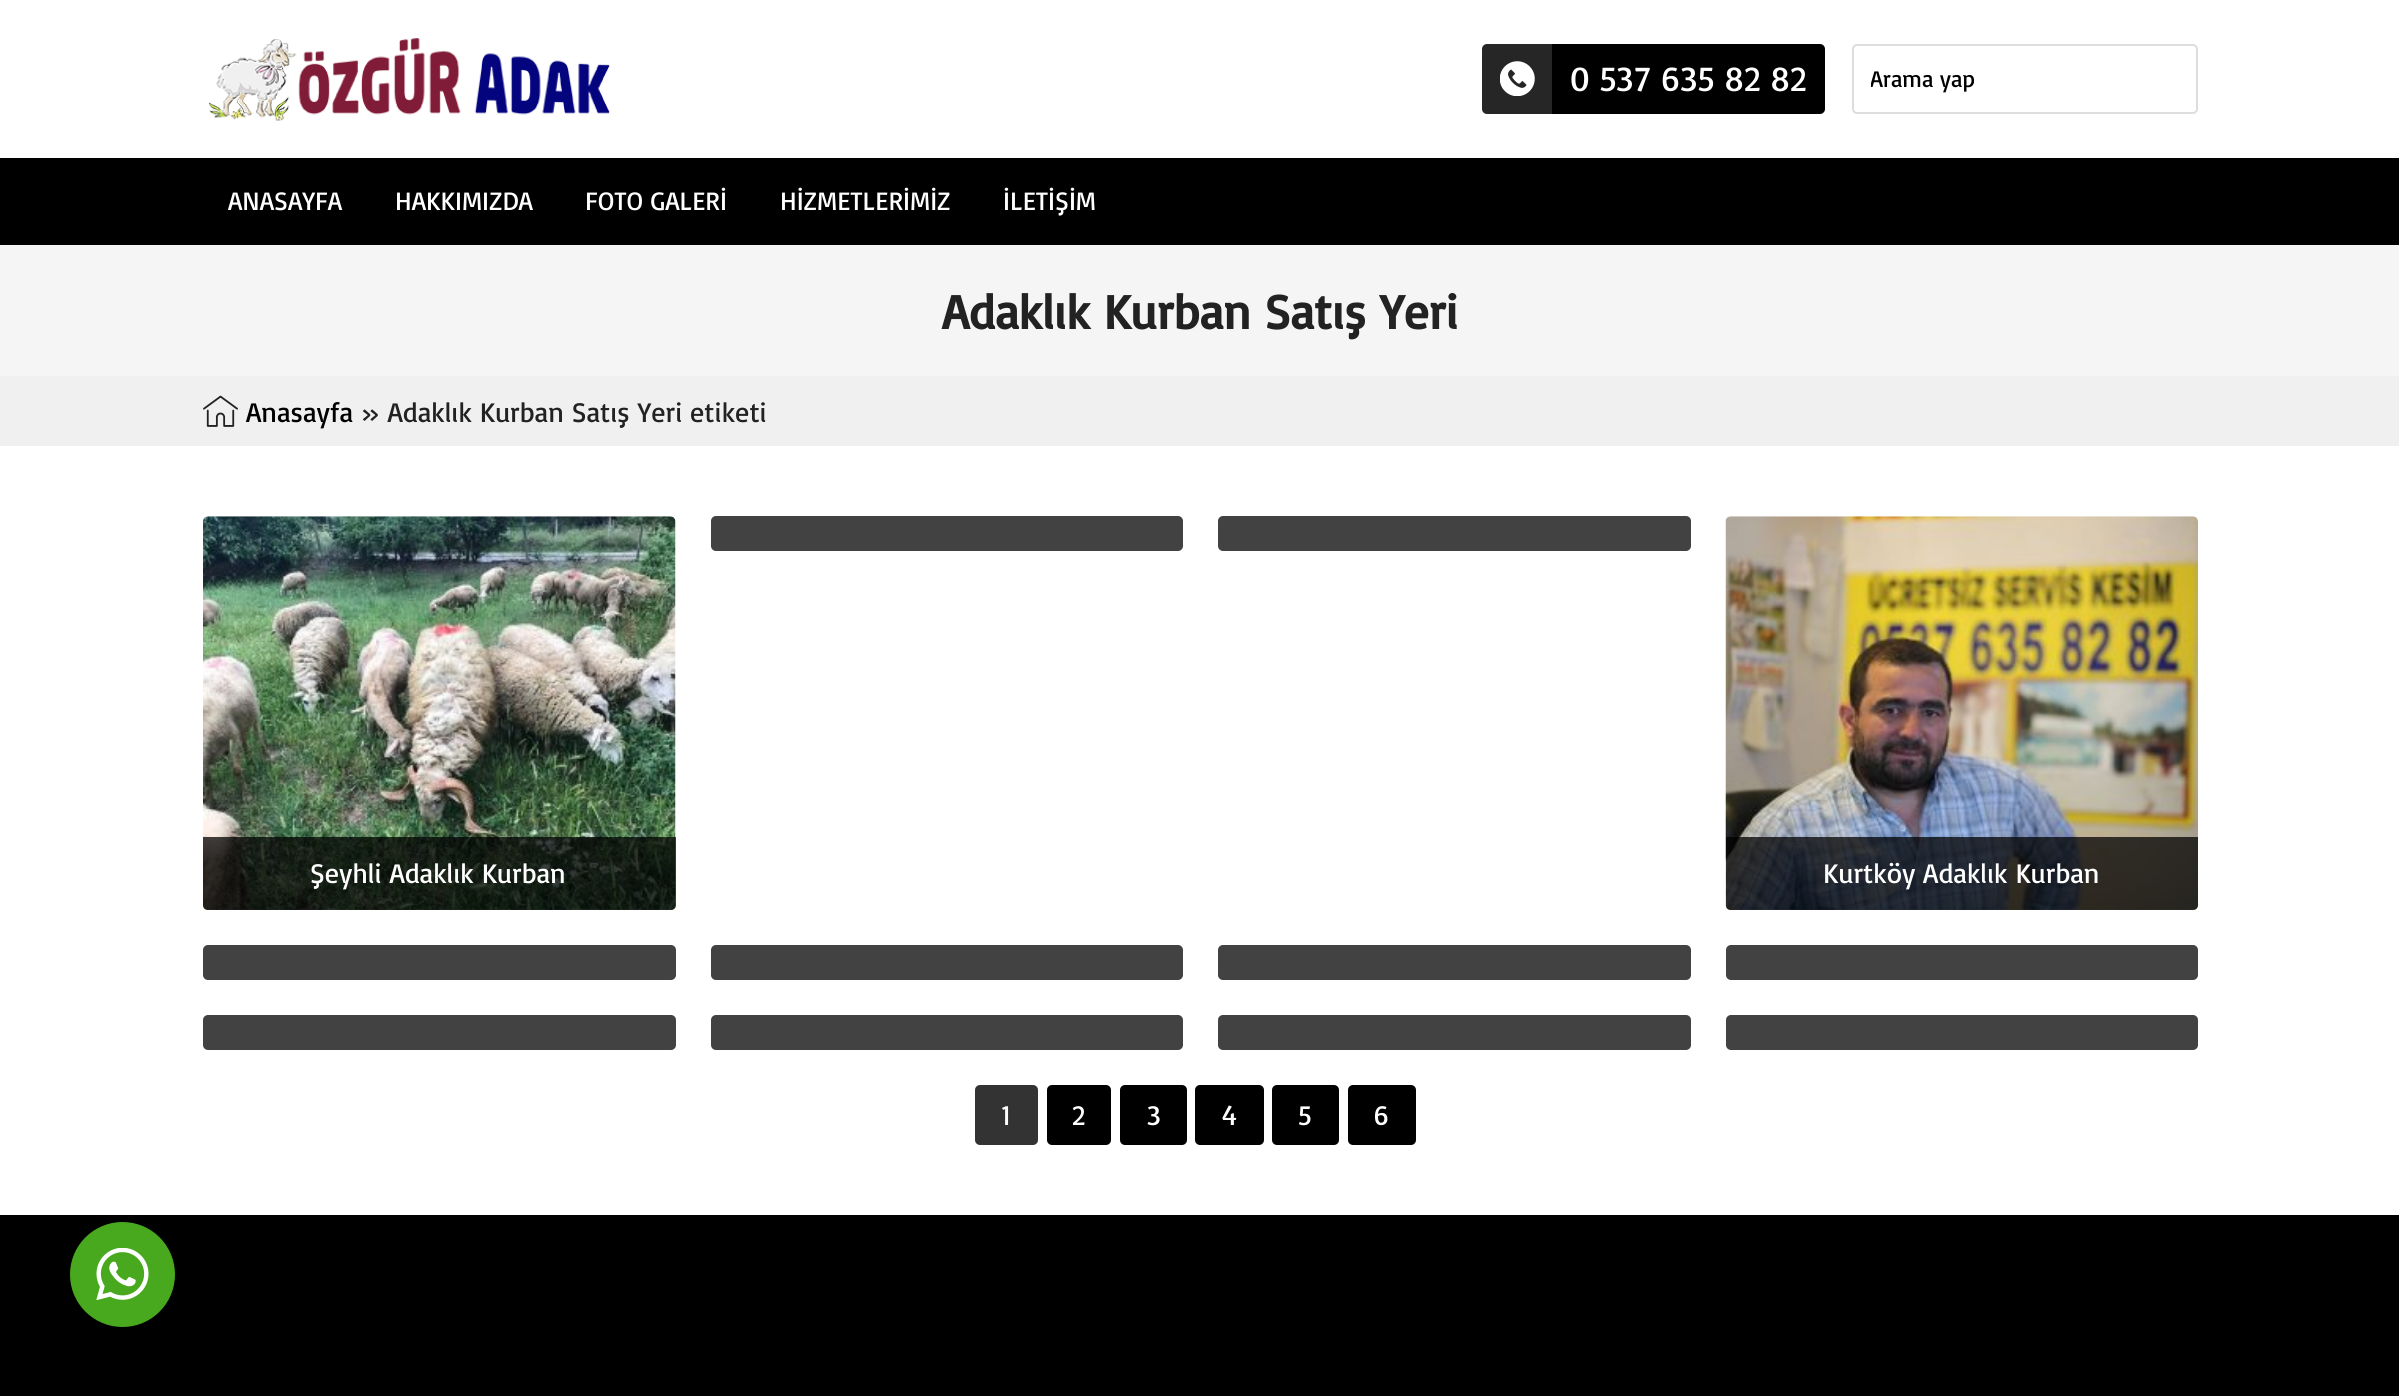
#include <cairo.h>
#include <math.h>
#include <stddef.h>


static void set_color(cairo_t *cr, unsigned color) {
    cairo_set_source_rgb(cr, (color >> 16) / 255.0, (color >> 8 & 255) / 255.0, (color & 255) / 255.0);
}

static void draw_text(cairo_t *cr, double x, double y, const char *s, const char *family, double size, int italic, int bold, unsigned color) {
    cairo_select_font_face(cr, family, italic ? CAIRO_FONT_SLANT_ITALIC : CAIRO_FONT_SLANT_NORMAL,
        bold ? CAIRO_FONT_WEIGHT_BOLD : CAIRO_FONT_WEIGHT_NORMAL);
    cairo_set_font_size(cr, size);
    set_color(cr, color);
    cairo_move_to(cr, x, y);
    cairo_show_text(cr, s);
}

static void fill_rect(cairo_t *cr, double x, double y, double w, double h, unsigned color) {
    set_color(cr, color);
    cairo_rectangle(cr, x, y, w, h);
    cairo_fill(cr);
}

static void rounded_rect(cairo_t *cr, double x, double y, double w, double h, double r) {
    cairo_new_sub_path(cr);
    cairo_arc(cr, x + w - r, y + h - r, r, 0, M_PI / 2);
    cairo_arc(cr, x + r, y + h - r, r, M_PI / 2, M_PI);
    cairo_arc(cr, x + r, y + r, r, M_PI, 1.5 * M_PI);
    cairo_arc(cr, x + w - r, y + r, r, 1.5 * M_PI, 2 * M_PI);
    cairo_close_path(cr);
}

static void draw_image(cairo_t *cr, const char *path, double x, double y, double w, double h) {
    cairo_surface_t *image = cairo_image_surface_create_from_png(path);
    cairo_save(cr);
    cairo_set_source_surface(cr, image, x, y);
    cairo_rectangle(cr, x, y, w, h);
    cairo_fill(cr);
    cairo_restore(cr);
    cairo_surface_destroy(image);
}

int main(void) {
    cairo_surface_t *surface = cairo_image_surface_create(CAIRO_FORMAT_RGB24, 2399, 1396);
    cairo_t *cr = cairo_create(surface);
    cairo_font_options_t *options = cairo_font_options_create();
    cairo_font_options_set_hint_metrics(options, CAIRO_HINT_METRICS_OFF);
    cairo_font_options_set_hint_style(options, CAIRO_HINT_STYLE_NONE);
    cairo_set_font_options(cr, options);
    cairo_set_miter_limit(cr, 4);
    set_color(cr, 0xFFFFFF);
    cairo_paint(cr);
    draw_image(cr, "assets/img1.png", 209, 38, 401, 83);
    set_color(cr, 0x000000);
    rounded_rect(cr, 1482, 44, 343, 70, 5);
    cairo_fill(cr);
    cairo_set_source_rgba(cr, 1, 1, 1, 0.15);
    cairo_rectangle(cr, 1482, 44, 70, 70);
    cairo_fill(cr);
    draw_image(cr, "assets/img2.png", 1500, 61, 35, 35);
    draw_text(cr, 1570, 91, "0 537 635 82 82", "Basic", 35, 0, 0, 0xFFFFFF);
    rounded_rect(cr, 1853, 45, 344, 68, 4);
    set_color(cr, 0xDDDDDD);
    cairo_stroke(cr);
    cairo_save(cr);
    cairo_rectangle(cr, 1871, 65, 264, 28);
    cairo_clip(cr);
    draw_text(cr, 1870, 87, "Arama yap", "Basic", 23.5, 0, 0, 0x000000);
    cairo_restore(cr);
    fill_rect(cr, 0, 158, 2399, 87, 0x000000);
    draw_text(cr, 228, 210, "ANASAYFA", "Basic", 26.25, 0, 0, 0xFFFFFF);
    draw_text(cr, 395, 210, "HAKKIMIZDA", "Basic", 26.25, 0, 0, 0xFFFFFF);
    draw_text(cr, 585, 210, "FOTO GALERİ", "Basic", 26.25, 0, 0, 0xFFFFFF);
    draw_text(cr, 780, 210, "HİZMETLERİMİZ", "Basic", 26.25, 0, 0, 0xFFFFFF);
    draw_text(cr, 1003, 210, "İLETİŞİM", "Basic", 26.25, 0, 0, 0xFFFFFF);
    fill_rect(cr, 0, 245, 2399, 131, 0xF5F5F5);
    draw_text(cr, 942, 329, "Adaklık Kurban Satış Yeri", "Basic", 49, 0, 1, 0x222222);
    fill_rect(cr, 0, 376, 2399, 70, 0xF0F0F0);
    draw_image(cr, "assets/img3.png", 203, 395, 35, 32);
    draw_text(cr, 246, 422, "Anasayfa", "Basic", 28, 0, 0, 0x000000);
    draw_text(cr, 361, 422, "» Adaklık Kurban Satış Yeri etiketi", "Basic", 28, 0, 0, 0x222222);
    set_color(cr, 0x424242);
    rounded_rect(cr, 711, 516, 472, 35, 5);
    cairo_fill(cr);
    rounded_rect(cr, 1218, 516, 473, 35, 5);
    cairo_fill(cr);
    draw_image(cr, "assets/img4.png", 203, 516, 473, 394);
    cairo_set_source_rgba(cr, 0, 0, 0, 0.74);
    cairo_new_path(cr);
    cairo_move_to(cr, 203, 837);
    cairo_line_to(cr, 676, 837);
    cairo_line_to(cr, 676, 905);
    cairo_curve_to(cr, 676, 908, 674, 910, 671, 910);
    cairo_line_to(cr, 208, 910);
    cairo_curve_to(cr, 205, 910, 203, 908, 203, 905);
    cairo_close_path(cr);
    cairo_fill(cr);
    draw_text(cr, 310, 883, "Şeyhli Adaklık Kurban", "Basic", 28, 0, 0, 0xFFFFFF);
    draw_image(cr, "assets/img5.png", 1725, 516, 473, 394);
    cairo_set_source_rgba(cr, 0, 0, 0, 0.74);
    cairo_new_path(cr);
    cairo_move_to(cr, 1726, 837);
    cairo_line_to(cr, 2198, 837);
    cairo_line_to(cr, 2198, 905);
    cairo_curve_to(cr, 2198, 908, 2196, 910, 2193, 910);
    cairo_line_to(cr, 1731, 910);
    cairo_curve_to(cr, 1728, 910, 1726, 908, 1726, 905);
    cairo_close_path(cr);
    cairo_fill(cr);
    draw_text(cr, 1823, 883, "Kurtköy Adaklık Kurban", "Basic", 28, 0, 0, 0xFFFFFF);
    set_color(cr, 0x424242);
    rounded_rect(cr, 203, 945, 473, 35, 5);
    cairo_fill(cr);
    rounded_rect(cr, 711, 945, 472, 35, 5);
    cairo_fill(cr);
    rounded_rect(cr, 1218, 945, 473, 35, 5);
    cairo_fill(cr);
    rounded_rect(cr, 1726, 945, 472, 35, 5);
    cairo_fill(cr);
    rounded_rect(cr, 203, 1015, 473, 35, 5);
    cairo_fill(cr);
    rounded_rect(cr, 711, 1015, 472, 35, 5);
    cairo_fill(cr);
    rounded_rect(cr, 1218, 1015, 473, 35, 5);
    cairo_fill(cr);
    rounded_rect(cr, 1726, 1015, 472, 35, 5);
    cairo_fill(cr);
    set_color(cr, 0x333333);
    rounded_rect(cr, 975, 1085, 63, 60, 5);
    cairo_fill(cr);
    draw_text(cr, 1001, 1125, "1", "Basic", 28, 0, 0, 0xFFFFFF);
    set_color(cr, 0x000000);
    rounded_rect(cr, 1047, 1085, 64, 60, 5);
    cairo_fill(cr);
    draw_text(cr, 1072, 1125, "2", "Basic", 28, 0, 0, 0xFFFFFF);
    set_color(cr, 0x000000);
    rounded_rect(cr, 1120, 1085, 67, 60, 5);
    cairo_fill(cr);
    draw_text(cr, 1147, 1125, "3", "Basic", 28, 0, 0, 0xFFFFFF);
    set_color(cr, 0x000000);
    rounded_rect(cr, 1195, 1085, 69, 60, 5);
    cairo_fill(cr);
    draw_text(cr, 1222, 1125, "4", "Basic", 28, 0, 0, 0xFFFFFF);
    set_color(cr, 0x000000);
    rounded_rect(cr, 1272, 1085, 67, 60, 5);
    cairo_fill(cr);
    draw_text(cr, 1298, 1125, "5", "Basic", 28, 0, 0, 0xFFFFFF);
    set_color(cr, 0x000000);
    rounded_rect(cr, 1348, 1085, 68, 60, 5);
    cairo_fill(cr);
    draw_text(cr, 1373, 1125, "6", "Basic", 28, 0, 0, 0xFFFFFF);
    fill_rect(cr, 0, 1215, 2399, 181, 0x000000);
    set_color(cr, 0x48A91F);
    cairo_new_path(cr);
    cairo_arc(cr, 122.5, 1274.5, 52.5, 0, 2 * M_PI);
    cairo_fill(cr);
    draw_image(cr, "assets/img6.png", 96, 1248, 53, 52);
    cairo_surface_write_to_png(surface, "output.png");
    cairo_font_options_destroy(options);
    cairo_destroy(cr);
    cairo_surface_destroy(surface);
    return 0;
}
